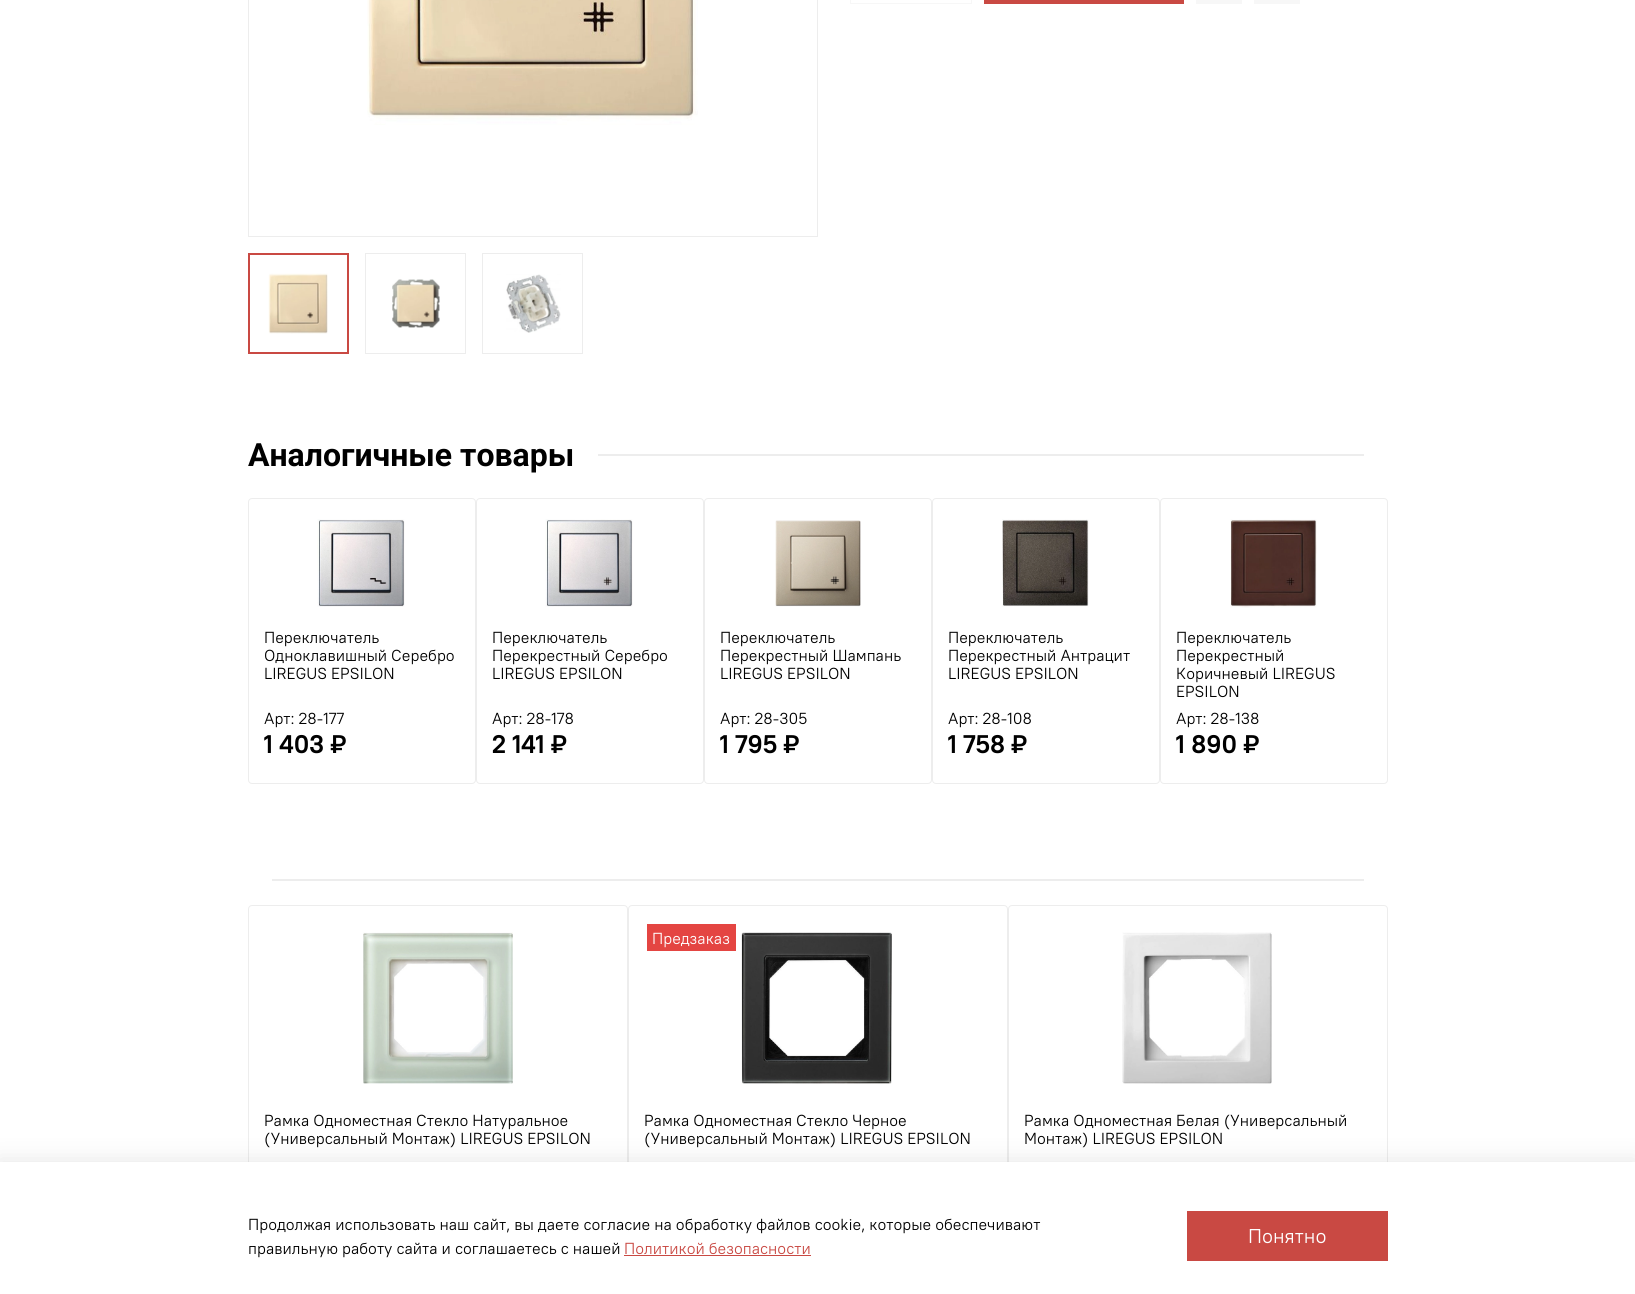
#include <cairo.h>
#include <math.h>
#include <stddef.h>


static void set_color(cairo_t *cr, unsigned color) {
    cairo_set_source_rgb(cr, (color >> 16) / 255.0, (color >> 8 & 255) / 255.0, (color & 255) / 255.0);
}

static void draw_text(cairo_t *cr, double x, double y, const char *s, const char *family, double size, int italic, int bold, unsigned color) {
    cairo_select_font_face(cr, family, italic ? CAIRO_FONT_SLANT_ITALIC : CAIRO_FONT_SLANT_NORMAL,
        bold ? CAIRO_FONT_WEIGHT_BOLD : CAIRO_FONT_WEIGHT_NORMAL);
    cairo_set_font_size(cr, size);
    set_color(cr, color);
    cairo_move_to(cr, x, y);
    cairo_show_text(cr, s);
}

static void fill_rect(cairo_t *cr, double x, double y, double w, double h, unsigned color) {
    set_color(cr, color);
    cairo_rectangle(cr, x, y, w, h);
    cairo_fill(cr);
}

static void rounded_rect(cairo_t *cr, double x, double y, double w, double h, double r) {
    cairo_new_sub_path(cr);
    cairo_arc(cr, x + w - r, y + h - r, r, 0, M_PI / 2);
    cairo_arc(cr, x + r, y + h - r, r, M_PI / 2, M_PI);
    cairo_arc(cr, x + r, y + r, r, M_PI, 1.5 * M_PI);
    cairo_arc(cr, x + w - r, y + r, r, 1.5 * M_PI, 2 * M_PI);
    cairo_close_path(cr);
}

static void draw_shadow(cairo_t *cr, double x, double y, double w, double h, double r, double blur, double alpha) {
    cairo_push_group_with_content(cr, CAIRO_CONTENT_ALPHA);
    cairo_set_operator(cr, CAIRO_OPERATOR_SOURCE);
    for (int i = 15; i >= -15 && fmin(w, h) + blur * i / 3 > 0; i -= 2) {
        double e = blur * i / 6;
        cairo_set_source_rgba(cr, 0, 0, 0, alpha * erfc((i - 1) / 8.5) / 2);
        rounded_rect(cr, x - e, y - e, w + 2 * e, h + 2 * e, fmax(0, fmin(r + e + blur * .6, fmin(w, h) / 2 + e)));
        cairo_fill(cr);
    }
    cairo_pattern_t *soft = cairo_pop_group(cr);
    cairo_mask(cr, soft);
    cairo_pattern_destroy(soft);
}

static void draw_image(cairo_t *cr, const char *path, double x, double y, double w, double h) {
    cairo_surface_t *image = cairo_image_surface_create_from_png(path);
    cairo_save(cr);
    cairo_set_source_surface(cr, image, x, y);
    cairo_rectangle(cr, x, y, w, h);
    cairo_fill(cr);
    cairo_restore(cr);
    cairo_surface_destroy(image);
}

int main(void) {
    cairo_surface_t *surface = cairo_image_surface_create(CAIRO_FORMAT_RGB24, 1635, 1294);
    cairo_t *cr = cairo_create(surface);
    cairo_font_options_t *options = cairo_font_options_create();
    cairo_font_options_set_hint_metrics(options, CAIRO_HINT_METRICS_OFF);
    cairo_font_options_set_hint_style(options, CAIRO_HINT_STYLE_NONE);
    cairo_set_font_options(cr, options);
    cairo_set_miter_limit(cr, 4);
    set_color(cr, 0xFFFFFF);
    cairo_paint(cr);
    cairo_rectangle(cr, 248.5, -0.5, 569, 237);
    set_color(cr, 0xEDEDED);
    cairo_set_line_width(cr, 1);
    cairo_stroke(cr);
    draw_image(cr, "assets/img1.png", 367, 0, 331, 125);
    draw_image(cr, "assets/img2.png", 268, 273, 60, 61);
    cairo_rectangle(cr, 249, 254, 99, 99);
    set_color(cr, 0xC94943);
    cairo_set_line_width(cr, 2);
    cairo_stroke(cr);
    draw_image(cr, "assets/img3.png", 392, 279, 48, 49);
    cairo_rectangle(cr, 365.5, 253.5, 100, 100);
    set_color(cr, 0xEDEDED);
    cairo_set_line_width(cr, 1);
    cairo_stroke(cr);
    draw_image(cr, "assets/img4.png", 506, 274, 55, 59);
    cairo_rectangle(cr, 482.5, 253.5, 100, 100);
    cairo_stroke(cr);
    cairo_rectangle(cr, 850.5, -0.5, 121, 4);
    set_color(cr, 0xF7F7F7);
    cairo_stroke(cr);
    fill_rect(cr, 984, 0, 200, 4, 0xC94943);
    fill_rect(cr, 1196, 0, 46, 4, 0xF7F7F7);
    fill_rect(cr, 1254, 0, 46, 4, 0xF7F7F7);
    draw_text(cr, 248, 466, "Аналогичные товары", "Roboto", 32, 0, 1, 0x000000);
    fill_rect(cr, 598, 454, 766, 2, 0xEDEDED);
    rounded_rect(cr, 248.5, 498.5, 227, 285, 3.5);
    cairo_stroke(cr);
    draw_image(cr, "assets/img5.png", 317, 519, 88, 88);
    draw_text(cr, 264, 643, "Переключатель", "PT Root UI", 16, 0, 0, 0x000000);
    draw_text(cr, 264, 661, "Одноклавишный Серебро", "PT Root UI", 16, 0, 0, 0x000000);
    draw_text(cr, 264, 679, "LIREGUS EPSILON", "PT Root UI", 16, 0, 0, 0x000000);
    draw_text(cr, 264, 724, "Арт: 28-177", "PT Root UI", 16, 0, 0, 0x000000);
    draw_text(cr, 264, 753, "1 403 ₽", "PT Root UI", 25.5, 0, 1, 0x000000);
    rounded_rect(cr, 476.5, 498.5, 227, 285, 3.5);
    set_color(cr, 0xEDEDED);
    cairo_stroke(cr);
    draw_image(cr, "assets/img6.png", 545, 519, 88, 88);
    draw_text(cr, 492, 643, "Переключатель", "PT Root UI", 16, 0, 0, 0x000000);
    draw_text(cr, 492, 661, "Перекрестный Серебро", "PT Root UI", 16, 0, 0, 0x000000);
    draw_text(cr, 492, 679, "LIREGUS EPSILON", "PT Root UI", 16, 0, 0, 0x000000);
    draw_text(cr, 492, 724, "Арт: 28-178", "PT Root UI", 16, 0, 0, 0x000000);
    draw_text(cr, 492, 753, "2 141 ₽", "PT Root UI", 25.5, 0, 1, 0x000000);
    rounded_rect(cr, 704.5, 498.5, 227, 285, 3.5);
    set_color(cr, 0xEDEDED);
    cairo_stroke(cr);
    draw_image(cr, "assets/img7.png", 775, 520, 86, 87);
    draw_text(cr, 720, 643, "Переключатель", "PT Root UI", 16, 0, 0, 0x000000);
    draw_text(cr, 720, 661, "Перекрестный Шампань", "PT Root UI", 16, 0, 0, 0x000000);
    draw_text(cr, 720, 679, "LIREGUS EPSILON", "PT Root UI", 16, 0, 0, 0x000000);
    draw_text(cr, 720, 724, "Арт: 28-305", "PT Root UI", 16, 0, 0, 0x000000);
    draw_text(cr, 720, 753, "1 795 ₽", "PT Root UI", 25.5, 0, 1, 0x000000);
    rounded_rect(cr, 932.5, 498.5, 227, 285, 3.5);
    set_color(cr, 0xEDEDED);
    cairo_stroke(cr);
    draw_image(cr, "assets/img8.png", 1002, 519, 87, 88);
    draw_text(cr, 948, 643, "Переключатель", "PT Root UI", 16, 0, 0, 0x000000);
    draw_text(cr, 948, 661, "Перекрестный Антрацит", "PT Root UI", 16, 0, 0, 0x000000);
    draw_text(cr, 948, 679, "LIREGUS EPSILON", "PT Root UI", 16, 0, 0, 0x000000);
    draw_text(cr, 948, 724, "Арт: 28-108", "PT Root UI", 16, 0, 0, 0x000000);
    draw_text(cr, 948, 753, "1 758 ₽", "PT Root UI", 25.5, 0, 1, 0x000000);
    rounded_rect(cr, 1160.5, 498.5, 227, 285, 3.5);
    set_color(cr, 0xEDEDED);
    cairo_stroke(cr);
    draw_image(cr, "assets/img9.png", 1230, 519, 87, 89);
    draw_text(cr, 1176, 643, "Переключатель", "PT Root UI", 16, 0, 0, 0x000000);
    draw_text(cr, 1176, 661, "Перекрестный", "PT Root UI", 16, 0, 0, 0x000000);
    draw_text(cr, 1176, 679, "Коричневый LIREGUS", "PT Root UI", 16, 0, 0, 0x000000);
    draw_text(cr, 1176, 697, "EPSILON", "PT Root UI", 16, 0, 0, 0x000000);
    draw_text(cr, 1176, 724, "Арт: 28-138", "PT Root UI", 16, 0, 0, 0x000000);
    draw_text(cr, 1176, 753, "1 890 ₽", "PT Root UI", 25.5, 0, 1, 0x000000);
    fill_rect(cr, 272, 879, 1092, 2, 0xEDEDED);
    rounded_rect(cr, 248.5, 905.5, 379, 325, 3.5);
    cairo_stroke(cr);
    draw_image(cr, "assets/img10.png", 363, 932, 150, 152);
    draw_text(cr, 264, 1126, "Рамка Одноместная Стекло Натуральное", "PT Root UI", 16, 0, 0, 0x000000);
    draw_text(cr, 264, 1144, "(Универсальный Монтаж) LIREGUS EPSILON", "PT Root UI", 16, 0, 0, 0x000000);
    rounded_rect(cr, 628.5, 905.5, 379, 325, 3.5);
    set_color(cr, 0xEDEDED);
    cairo_stroke(cr);
    fill_rect(cr, 647, 924, 89, 27, 0xE44542);
    draw_text(cr, 652, 944, "Предзаказ", "PT Root UI", 16, 0, 0, 0xFFFFFF);
    draw_image(cr, "assets/img11.png", 741, 932, 151, 152);
    draw_text(cr, 644, 1126, "Рамка Одноместная Стекло Черное", "PT Root UI", 16, 0, 0, 0x000000);
    draw_text(cr, 644, 1144, "(Универсальный Монтаж) LIREGUS EPSILON", "PT Root UI", 16, 0, 0, 0x000000);
    rounded_rect(cr, 1008.5, 905.5, 379, 325, 3.5);
    set_color(cr, 0xEDEDED);
    cairo_stroke(cr);
    draw_image(cr, "assets/img12.png", 1122, 932, 150, 152);
    draw_text(cr, 1024, 1126, "Рамка Одноместная Белая (Универсальный", "PT Root UI", 16, 0, 0, 0x000000);
    draw_text(cr, 1024, 1144, "Монтаж) LIREGUS EPSILON", "PT Root UI", 16, 0, 0, 0x000000);
    set_color(cr, 0x000000);
    draw_shadow(cr, -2, 1159, 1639, 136, 0, 11.5, 0.09);
    fill_rect(cr, 0, 1162, 1635, 132, 0xFFFFFF);
    draw_text(cr, 248, 1230, "Продолжая использовать наш сайт, вы даете согласие на обработку файлов cookie, которые обеспечивают", "PT Root UI", 16, 0, 0, 0x000000);
    draw_text(cr, 248, 1254, "правильную работу сайта и соглашаетесь с нашей", "PT Root UI", 16, 0, 0, 0x000000);
    draw_text(cr, 624, 1254, "Политикой безопасности", "PT Root UI", 16, 0, 0, 0xC94943);
    fill_rect(cr, 624, 1255, 187, 1, 0xC94943);
    fill_rect(cr, 1187, 1211, 201, 50, 0xC94943);
    draw_text(cr, 1248, 1243, "Понятно", "PT Root UI", 20, 0, 0, 0xFFFFFF);
    cairo_surface_write_to_png(surface, "output.png");
    cairo_font_options_destroy(options);
    cairo_destroy(cr);
    cairo_surface_destroy(surface);
    return 0;
}
